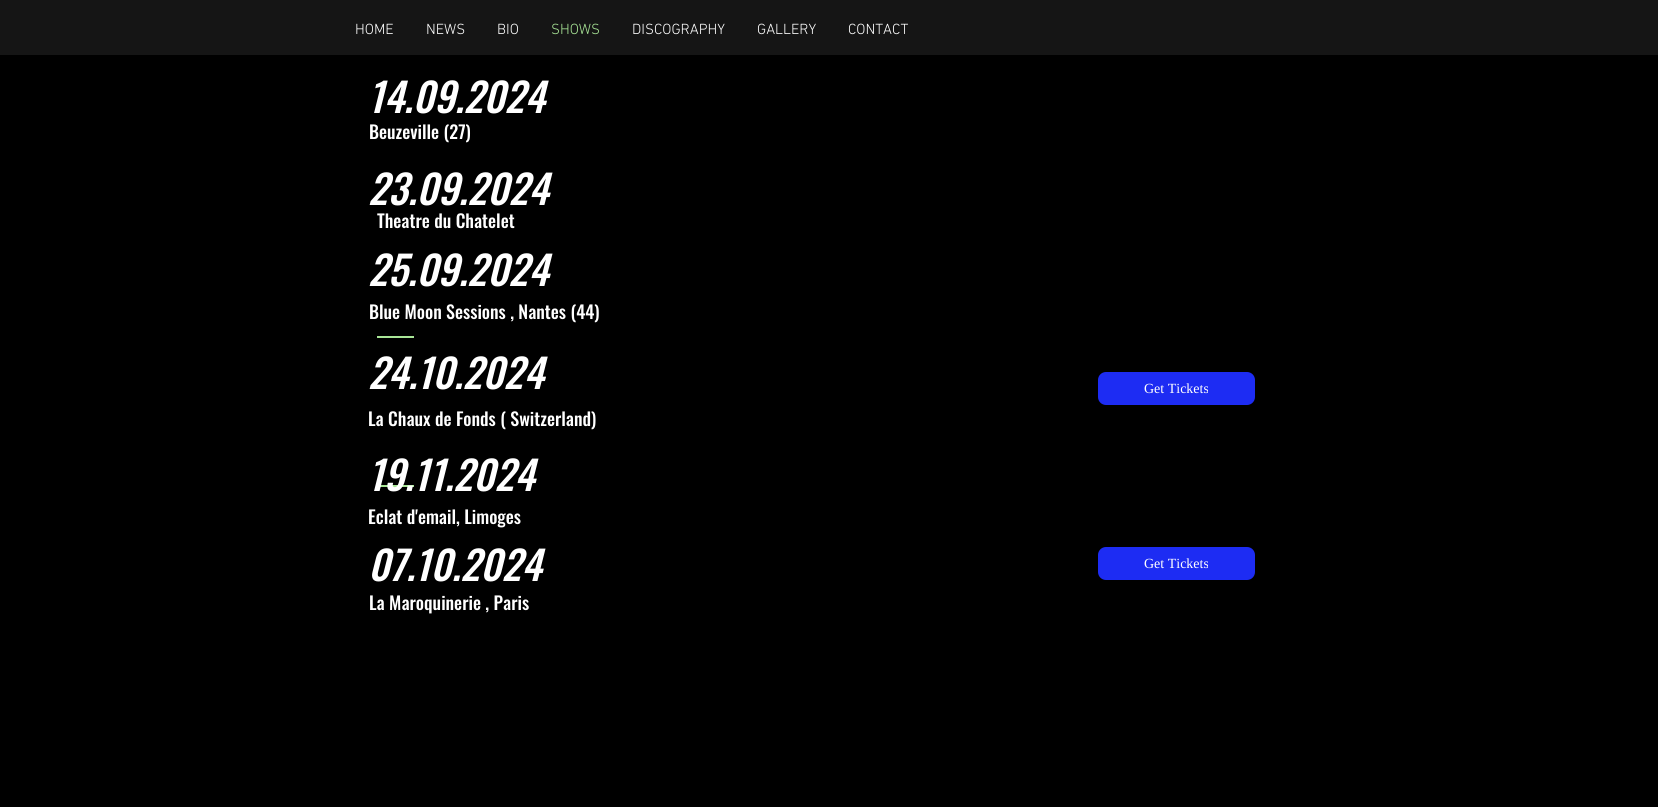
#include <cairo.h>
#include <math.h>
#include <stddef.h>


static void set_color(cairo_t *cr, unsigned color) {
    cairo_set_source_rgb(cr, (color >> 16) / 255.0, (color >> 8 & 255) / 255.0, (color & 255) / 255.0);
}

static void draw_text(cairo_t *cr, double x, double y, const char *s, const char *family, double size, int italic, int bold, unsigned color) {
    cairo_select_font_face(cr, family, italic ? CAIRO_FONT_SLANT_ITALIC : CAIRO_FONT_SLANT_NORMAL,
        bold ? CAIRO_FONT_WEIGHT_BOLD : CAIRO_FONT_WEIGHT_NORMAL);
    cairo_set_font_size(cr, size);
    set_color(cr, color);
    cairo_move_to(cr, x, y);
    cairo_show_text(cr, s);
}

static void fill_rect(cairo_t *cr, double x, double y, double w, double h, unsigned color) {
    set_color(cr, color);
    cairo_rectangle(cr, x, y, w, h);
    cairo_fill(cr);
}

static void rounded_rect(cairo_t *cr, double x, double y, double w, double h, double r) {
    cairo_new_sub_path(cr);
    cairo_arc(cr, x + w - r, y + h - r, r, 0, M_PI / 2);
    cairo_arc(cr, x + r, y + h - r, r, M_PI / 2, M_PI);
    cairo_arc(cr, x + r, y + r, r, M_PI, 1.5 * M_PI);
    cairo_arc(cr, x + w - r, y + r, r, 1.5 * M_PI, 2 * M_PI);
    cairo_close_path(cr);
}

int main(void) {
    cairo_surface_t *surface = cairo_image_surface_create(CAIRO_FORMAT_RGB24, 1658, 807);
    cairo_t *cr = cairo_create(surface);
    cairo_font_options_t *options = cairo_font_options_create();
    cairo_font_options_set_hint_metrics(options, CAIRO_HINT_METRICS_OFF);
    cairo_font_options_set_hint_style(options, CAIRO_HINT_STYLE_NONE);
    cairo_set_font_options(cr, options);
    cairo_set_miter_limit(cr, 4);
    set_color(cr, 0x000000);
    cairo_paint(cr);
    fill_rect(cr, 0, 0, 1658, 55, 0x151515);
    draw_text(cr, 355, 34, "HOME", "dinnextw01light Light", 15, 0, 0, 0xFFFFFF);
    draw_text(cr, 426, 34, "NEWS", "dinnextw01light Light", 15, 0, 0, 0xFFFFFF);
    draw_text(cr, 497, 34, "BIO", "dinnextw01light Light", 15, 0, 0, 0xFFFFFF);
    draw_text(cr, 551, 34, "SHOWS", "dinnextw01light Light", 15, 0, 0, 0xA9E697);
    draw_text(cr, 632, 34, "DISCOGRAPHY", "dinnextw01light Light", 15, 0, 0, 0xFFFFFF);
    draw_text(cr, 757, 34, "GALLERY", "dinnextw01light Light", 15, 0, 0, 0xFFFFFF);
    draw_text(cr, 848, 34, "CONTACT", "dinnextw01light Light", 15, 0, 0, 0xFFFFFF);
    draw_text(cr, 368, 113, "14.09.2024", "Oswald Medium", 40, 1, 0, 0xFFFFFF);
    draw_text(cr, 369, 139, "Beuzeville (27)", "Oswald Medium", 18, 0, 0, 0xFFFFFF);
    draw_text(cr, 368, 205, "23.09.2024", "Oswald Medium", 40, 1, 0, 0xFFFFFF);
    draw_text(cr, 377, 228, "Theatre du Chatelet", "Oswald Medium", 18, 0, 0, 0xFFFFFF);
    draw_text(cr, 368, 286, "25.09.2024", "Oswald Medium", 40, 1, 0, 0xFFFFFF);
    draw_text(cr, 369, 319, "Blue Moon Sessions , Nantes (44)", "Oswald Medium", 18, 0, 0, 0xFFFFFF);
    fill_rect(cr, 377, 336, 37, 2, 0xA9E697);
    draw_text(cr, 368, 389, "24.10.2024", "Oswald Medium", 40, 1, 0, 0xFFFFFF);
    set_color(cr, 0x1D2CF3);
    rounded_rect(cr, 1098, 372, 157, 33, 8);
    cairo_fill(cr);
    draw_text(cr, 1144, 393, "Get Tickets", "Liberation Serif", 14, 0, 0, 0xFFFFFF);
    draw_text(cr, 368, 426, "La Chaux de Fonds ( Switzerland)", "Oswald Medium", 18, 0, 0, 0xFFFFFF);
    fill_rect(cr, 377, 485, 37, 2, 0xA9E697);
    draw_text(cr, 368, 491, "19.11.2024", "Oswald Medium", 40, 1, 0, 0xFFFFFF);
    draw_text(cr, 368, 524, "Eclat d'email, Limoges", "Oswald Medium", 18, 0, 0, 0xFFFFFF);
    draw_text(cr, 368, 581, "07.10.2024", "Oswald Medium", 40, 1, 0, 0xFFFFFF);
    set_color(cr, 0x1D2CF3);
    rounded_rect(cr, 1098, 547, 157, 33, 8);
    cairo_fill(cr);
    draw_text(cr, 1144, 568, "Get Tickets", "Liberation Serif", 14, 0, 0, 0xFFFFFF);
    draw_text(cr, 369, 610, "La Maroquinerie , Paris", "Oswald Medium", 18, 0, 0, 0xFFFFFF);
    cairo_surface_write_to_png(surface, "output.png");
    cairo_font_options_destroy(options);
    cairo_destroy(cr);
    cairo_surface_destroy(surface);
    return 0;
}
